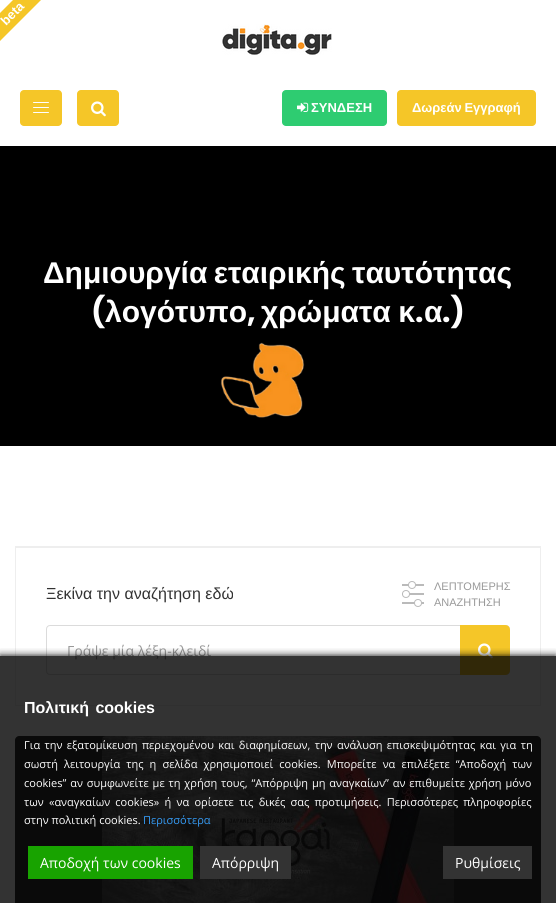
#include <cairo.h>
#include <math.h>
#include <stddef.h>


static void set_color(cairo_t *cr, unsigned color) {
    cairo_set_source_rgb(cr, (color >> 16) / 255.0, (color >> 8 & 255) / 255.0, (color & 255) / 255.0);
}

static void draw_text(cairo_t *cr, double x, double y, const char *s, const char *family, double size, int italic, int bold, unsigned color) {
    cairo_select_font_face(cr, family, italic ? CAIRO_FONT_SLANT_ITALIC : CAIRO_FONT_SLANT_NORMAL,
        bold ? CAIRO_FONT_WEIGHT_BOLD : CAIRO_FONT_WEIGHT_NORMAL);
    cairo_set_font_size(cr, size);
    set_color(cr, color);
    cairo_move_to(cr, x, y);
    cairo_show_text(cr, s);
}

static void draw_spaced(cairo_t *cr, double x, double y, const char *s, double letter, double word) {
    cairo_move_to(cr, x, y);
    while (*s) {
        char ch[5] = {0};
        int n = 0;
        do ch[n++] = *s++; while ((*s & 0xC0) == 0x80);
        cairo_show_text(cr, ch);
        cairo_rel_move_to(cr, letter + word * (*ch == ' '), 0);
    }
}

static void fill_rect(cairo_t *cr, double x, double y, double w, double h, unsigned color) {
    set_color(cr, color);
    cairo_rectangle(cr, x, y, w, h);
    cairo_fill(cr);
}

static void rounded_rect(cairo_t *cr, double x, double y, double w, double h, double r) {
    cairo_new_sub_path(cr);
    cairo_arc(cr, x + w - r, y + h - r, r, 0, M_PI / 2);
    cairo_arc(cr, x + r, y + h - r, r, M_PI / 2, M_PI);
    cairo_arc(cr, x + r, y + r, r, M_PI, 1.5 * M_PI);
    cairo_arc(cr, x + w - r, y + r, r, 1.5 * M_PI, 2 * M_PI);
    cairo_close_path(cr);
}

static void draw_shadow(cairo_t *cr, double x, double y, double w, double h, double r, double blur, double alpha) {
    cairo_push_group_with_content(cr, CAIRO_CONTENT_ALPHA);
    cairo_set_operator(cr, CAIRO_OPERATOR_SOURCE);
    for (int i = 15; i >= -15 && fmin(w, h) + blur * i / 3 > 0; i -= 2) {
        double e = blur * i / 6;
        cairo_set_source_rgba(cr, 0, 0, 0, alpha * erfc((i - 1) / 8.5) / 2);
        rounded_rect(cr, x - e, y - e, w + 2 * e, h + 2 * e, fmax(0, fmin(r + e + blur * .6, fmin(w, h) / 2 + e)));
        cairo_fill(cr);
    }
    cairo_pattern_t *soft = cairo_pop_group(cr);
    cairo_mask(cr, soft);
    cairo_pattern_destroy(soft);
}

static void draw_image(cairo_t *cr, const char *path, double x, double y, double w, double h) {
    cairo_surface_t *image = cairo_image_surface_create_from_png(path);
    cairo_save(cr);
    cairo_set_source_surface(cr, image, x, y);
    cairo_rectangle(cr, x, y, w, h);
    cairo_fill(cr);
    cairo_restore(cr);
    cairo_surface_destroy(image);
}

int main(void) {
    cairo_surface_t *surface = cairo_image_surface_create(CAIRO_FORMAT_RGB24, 556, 903);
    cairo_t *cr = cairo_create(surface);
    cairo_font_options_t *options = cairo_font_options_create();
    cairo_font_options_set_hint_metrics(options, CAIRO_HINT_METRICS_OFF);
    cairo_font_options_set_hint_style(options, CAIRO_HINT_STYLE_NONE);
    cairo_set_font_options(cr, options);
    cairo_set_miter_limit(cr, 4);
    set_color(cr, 0xFFFFFF);
    cairo_paint(cr);
    set_color(cr, 0xF5C627);
    cairo_new_path(cr);
    cairo_move_to(cr, -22, 35);
    cairo_line_to(cr, 34, -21);
    cairo_line_to(cr, 48, -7);
    cairo_line_to(cr, -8, 49);
    cairo_close_path(cr);
    cairo_fill(cr);
    cairo_save(cr);
    cairo_translate(cr, 6, 26);
    cairo_rotate(cr, -45 * M_PI / 180);
    draw_text(cr, 0, 0, "beta", "Liberation Sans", 13, 0, 1, 0xFFFFFF);
    cairo_restore(cr);
    draw_image(cr, "assets/img1.png", 222, 24, 110, 31);
    set_color(cr, 0xF5C628);
    rounded_rect(cr, 20, 90, 42, 36, 4);
    cairo_fill(cr);
    draw_image(cr, "assets/img2.png", 33, 102, 16, 11);
    rounded_rect(cr, 77, 90, 42, 36, 4);
    cairo_fill(cr);
    draw_image(cr, "assets/img3.png", 91, 101, 15, 16);
    set_color(cr, 0x2ECC71);
    rounded_rect(cr, 282, 90, 105, 36, 4);
    cairo_fill(cr);
    draw_image(cr, "assets/img4.png", 297, 102, 12, 10);
    draw_text(cr, 311, 112, "ΣΥΝΔΕΣΗ", "Liberation Sans", 13, 0, 1, 0xFFFFFF);
    set_color(cr, 0xF5C628);
    rounded_rect(cr, 397, 90, 139, 36, 4);
    cairo_fill(cr);
    set_color(cr, 0xFFFFFF);
    draw_spaced(cr, 412, 112, "Δωρεάν Εγγραφή", 0, -1);
    draw_image(cr, "assets/img5.png", 0, 146, 556, 300);
    cairo_set_font_size(cr, 30);
    draw_spaced(cr, 43, 283, "Δημιουργία εταιρικής ταυτότητας", 0, -2);
    draw_text(cr, 91, 322, "(", "Poppins", 30, 0, 1, 0xFFFFFF);
    draw_text(cr, 105, 322, "λογότυπο", "Liberation Sans", 30, 0, 1, 0xFFFFFF);
    draw_text(cr, 247, 322, ",", "Poppins", 30, 0, 1, 0xFFFFFF);
    cairo_select_font_face(cr, "Liberation Sans", CAIRO_FONT_SLANT_NORMAL, CAIRO_FONT_WEIGHT_BOLD);
    draw_spaced(cr, 261, 322, "χρώματα κ", 0, -1);
    draw_text(cr, 415, 322, ".", "Poppins", 30, 0, 1, 0xFFFFFF);
    draw_text(cr, 424, 322, "α", "Liberation Sans", 30, 0, 1, 0xFFFFFF);
    draw_text(cr, 442, 322, ".)", "Poppins", 30, 0, 1, 0xFFFFFF);
    cairo_rectangle(cr, 15.5, 546.5, 525, 159);
    set_color(cr, 0xEEEEEE);
    cairo_set_line_width(cr, 1);
    cairo_stroke(cr);
    fill_rect(cr, 16, 547, 524, 1, 0xEEEEEE);
    draw_text(cr, 46, 599, "Ξεκίνα την αναζήτηση εδώ", "Liberation Sans", 16, 0, 0, 0x323232);
    fill_rect(cr, 402, 584, 22, 2, 0xBABABA);
    set_color(cr, 0xFFFFFF);
    cairo_new_path(cr);
    cairo_arc(cr, 412, 585, 3.5, 0, 2 * M_PI);
    cairo_fill_preserve(cr);
    set_color(cr, 0xBABABA);
    cairo_stroke(cr);
    fill_rect(cr, 402, 593, 22, 2, 0xBABABA);
    set_color(cr, 0xFFFFFF);
    cairo_arc(cr, 406, 594, 3.5, 0, 2 * M_PI);
    cairo_fill_preserve(cr);
    set_color(cr, 0xBABABA);
    cairo_stroke(cr);
    fill_rect(cr, 402, 602, 22, 2, 0xBABABA);
    set_color(cr, 0xFFFFFF);
    cairo_arc(cr, 418, 603, 3.5, 0, 2 * M_PI);
    cairo_fill_preserve(cr);
    set_color(cr, 0xBABABA);
    cairo_stroke(cr);
    draw_text(cr, 434, 590, "ΛΕΠΤΟΜΕΡΗΣ", "Liberation Sans", 11, 0, 0, 0x999999);
    draw_text(cr, 434, 606, "ΑΝΑΖΗΤΗΣΗ", "Liberation Sans", 11, 0, 0, 0x999999);
    rounded_rect(cr, 46.5, 625.5, 463, 49, 3.5);
    set_color(cr, 0xDBDBDB);
    cairo_stroke(cr);
    draw_text(cr, 67, 656, "Γράψε μία λέξη-κλειδί", "Open Sans", 14, 0, 0, 0x999999);
    set_color(cr, 0xF5C628);
    cairo_new_path(cr);
    cairo_move_to(cr, 460, 625);
    cairo_line_to(cr, 505, 625);
    cairo_curve_to(cr, 508, 625, 510, 627, 510, 630);
    cairo_line_to(cr, 510, 670);
    cairo_curve_to(cr, 510, 673, 508, 675, 505, 675);
    cairo_line_to(cr, 460, 675);
    cairo_close_path(cr);
    cairo_fill(cr);
    draw_image(cr, "assets/img3.png", 478, 643, 15, 16);
    set_color(cr, 0x323232);
    cairo_new_path(cr);
    cairo_move_to(cr, 19, 736);
    cairo_line_to(cr, 537, 736);
    cairo_curve_to(cr, 539, 736, 541, 738, 541, 740);
    cairo_line_to(cr, 541, 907);
    cairo_line_to(cr, 15, 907);
    cairo_line_to(cr, 15, 740);
    cairo_curve_to(cr, 15, 738, 17, 736, 19, 736);
    cairo_close_path(cr);
    cairo_fill(cr);
    draw_image(cr, "assets/img6.png", 102, 736, 352, 167);
    cairo_save(cr);
    cairo_rectangle(cr, 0, 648, 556, 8);
    cairo_clip(cr);
    set_color(cr, 0x000000);
    draw_shadow(cr, 0, 656, 556, 247, 0, 4, 1);
    cairo_restore(cr);
    cairo_set_source_rgba(cr, 0, 0, 0, 0.8);
    cairo_rectangle(cr, 0, 656, 556, 247);
    cairo_fill(cr);
    cairo_select_font_face(cr, "Liberation Sans", CAIRO_FONT_SLANT_NORMAL, CAIRO_FONT_WEIGHT_BOLD);
    cairo_set_font_size(cr, 16);
    set_color(cr, 0xFFFFFF);
    draw_spaced(cr, 24, 713, "Πολιτική cookies", 0, 2);
    cairo_select_font_face(cr, "Open Sans", CAIRO_FONT_SLANT_NORMAL, CAIRO_FONT_WEIGHT_NORMAL);
    cairo_set_font_size(cr, 11);
    draw_spaced(cr, 24, 749, "Για την εξατομίκευση περιεχομένου και διαφημίσεων, την ανάλυση επισκεψιμότητας και για τη", 0, 1.5);
    draw_spaced(cr, 24, 768, "σωστή λειτουργία της η σελίδα χρησιμοποιεί cookies. Μπορείτε να επιλέξετε “Αποδοχή των", 0, 3.25);
    draw_spaced(cr, 24, 787, "cookies” αν συμφωνείτε με τη χρήση τους, “Απόρριψη μη αναγκαίων” αν επιθυμείτε χρήση μόνο", 0, 1);
    draw_spaced(cr, 24, 806, "των «αναγκαίων cookies» ή να ορίσετε τις δικές σας προτιμήσεις. Περισσότερες πληροφορίες", 0, 2.4);
    draw_text(cr, 24, 824, "στην πολιτική cookies.", "Open Sans", 11, 0, 0, 0xFFFFFF);
    draw_text(cr, 143, 824, "Περισσότερα", "Open Sans", 11, 0, 0, 0x359BF5);
    fill_rect(cr, 28, 846, 165, 33, 0x18A300);
    draw_text(cr, 40, 868, "Αποδοχή των cookies", "Open Sans", 14, 0, 0, 0xFFFFFF);
    fill_rect(cr, 200, 846, 91, 33, 0x333333);
    draw_text(cr, 212, 868, "Απόρριψη", "Open Sans", 14, 0, 0, 0xFFFFFF);
    fill_rect(cr, 443, 846, 89, 33, 0x333333);
    draw_text(cr, 455, 868, "Ρυθμίσεις", "Open Sans", 14, 0, 0, 0xFFFFFF);
    cairo_surface_write_to_png(surface, "output.png");
    cairo_font_options_destroy(options);
    cairo_destroy(cr);
    cairo_surface_destroy(surface);
    return 0;
}
